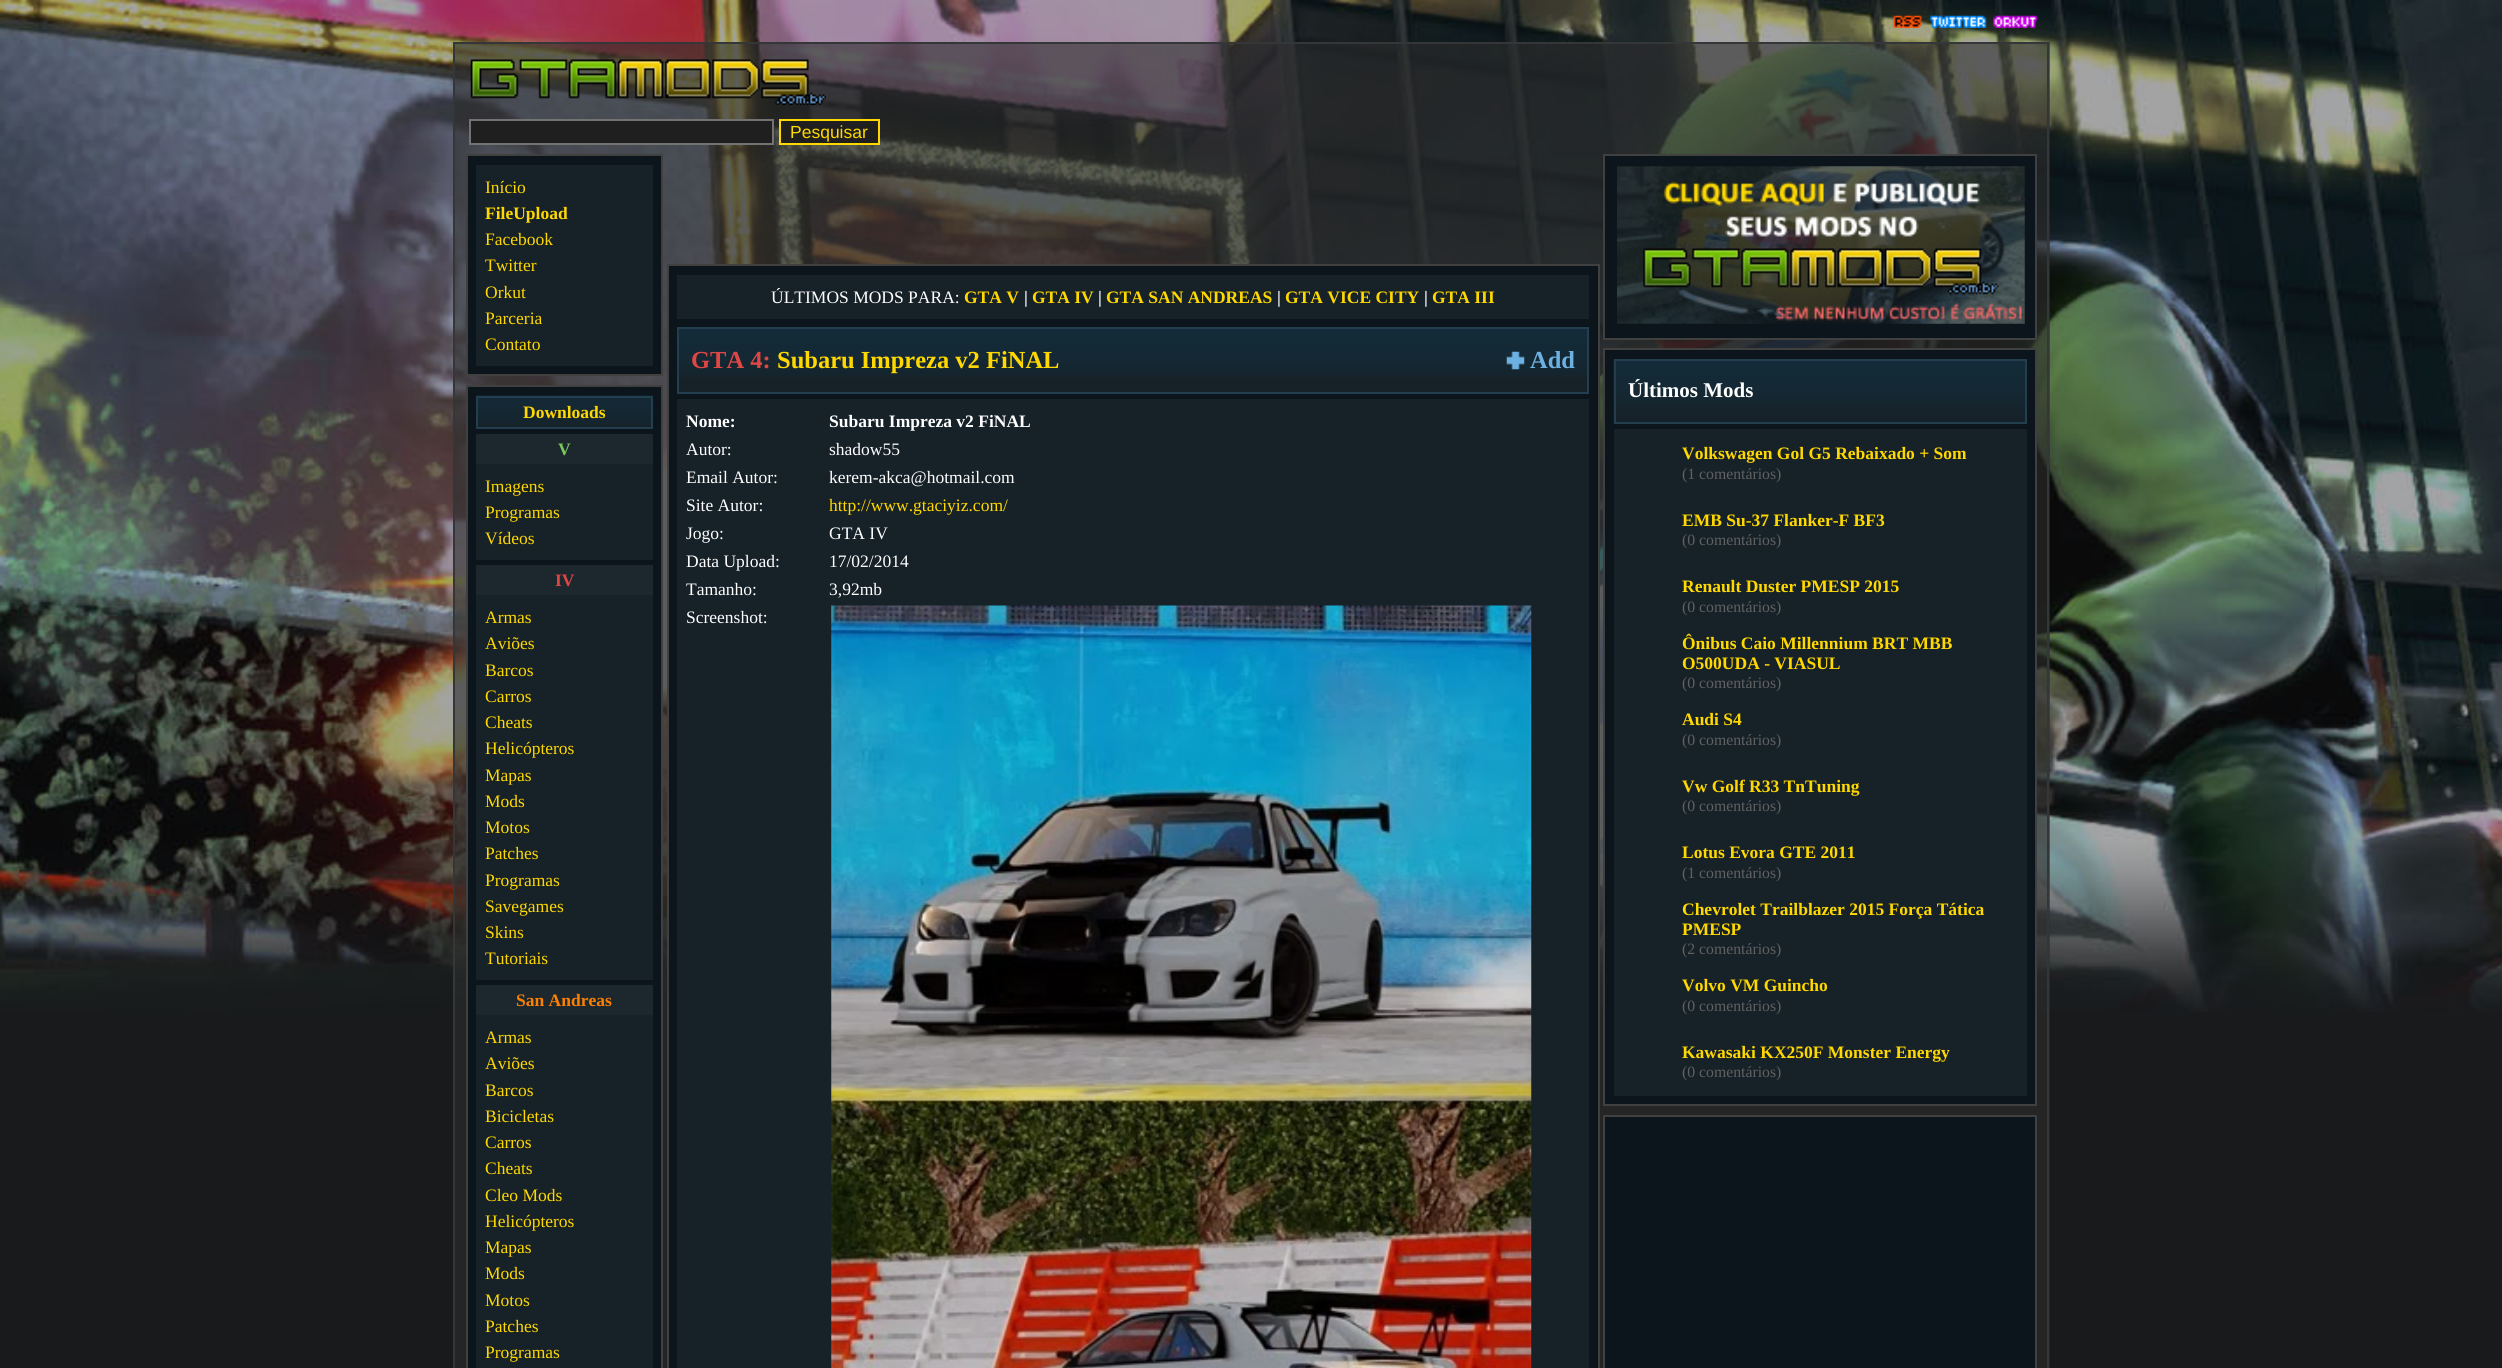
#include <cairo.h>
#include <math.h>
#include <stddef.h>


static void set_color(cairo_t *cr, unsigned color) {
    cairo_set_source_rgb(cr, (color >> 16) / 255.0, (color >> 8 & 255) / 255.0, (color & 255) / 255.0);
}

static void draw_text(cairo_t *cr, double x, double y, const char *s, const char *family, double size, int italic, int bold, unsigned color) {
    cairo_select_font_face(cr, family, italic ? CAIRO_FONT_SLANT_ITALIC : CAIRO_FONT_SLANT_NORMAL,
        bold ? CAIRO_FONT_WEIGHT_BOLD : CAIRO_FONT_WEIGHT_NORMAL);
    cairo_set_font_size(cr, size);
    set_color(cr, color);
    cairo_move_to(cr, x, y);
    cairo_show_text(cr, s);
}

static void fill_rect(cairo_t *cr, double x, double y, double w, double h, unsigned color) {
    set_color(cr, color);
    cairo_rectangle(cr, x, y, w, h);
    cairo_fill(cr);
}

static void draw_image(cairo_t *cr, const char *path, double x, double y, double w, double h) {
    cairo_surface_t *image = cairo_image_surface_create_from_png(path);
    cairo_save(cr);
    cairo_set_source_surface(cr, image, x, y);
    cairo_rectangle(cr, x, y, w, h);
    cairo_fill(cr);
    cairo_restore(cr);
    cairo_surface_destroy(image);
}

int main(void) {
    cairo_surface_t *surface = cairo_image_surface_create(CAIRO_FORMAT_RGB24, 2502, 1368);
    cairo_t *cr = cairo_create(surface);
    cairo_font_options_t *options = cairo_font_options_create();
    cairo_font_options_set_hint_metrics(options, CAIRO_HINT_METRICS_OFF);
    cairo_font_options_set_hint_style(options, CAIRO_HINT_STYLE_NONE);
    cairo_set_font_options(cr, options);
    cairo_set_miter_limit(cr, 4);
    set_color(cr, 0x181A1C);
    cairo_paint(cr);
    draw_image(cr, "assets/img1.png", 0, 0, 2502, 1012);
    draw_image(cr, "assets/img2.png", 1893, 15, 29, 13);
    draw_image(cr, "assets/img3.png", 1930, 15, 57, 13);
    draw_image(cr, "assets/img4.png", 1993, 15, 44, 13);
    cairo_set_source_rgba(cr, 0.176, 0.176, 0.176, 0.6);
    cairo_rectangle(cr, 455, 42, 1595, 1326);
    cairo_fill(cr);
    cairo_rectangle(cr, 454, 43, 1594, 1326);
    set_color(cr, 0x343637);
    cairo_stroke(cr);
    draw_image(cr, "assets/img5.png", 470, 59, 356, 46);
    set_color(cr, 0x1F1F1F);
    cairo_rectangle(cr, 470, 120, 303, 24);
    cairo_fill_preserve(cr);
    set_color(cr, 0x737373);
    cairo_stroke(cr);
    set_color(cr, 0x1F1F1F);
    cairo_rectangle(cr, 780, 120, 99, 24);
    cairo_fill_preserve(cr);
    set_color(cr, 0xFFD800);
    cairo_stroke(cr);
    draw_text(cr, 790, 138, "Pesquisar", "Liberation Sans", 17.5, 0, 0, 0xFFD800);
    set_color(cr, 0x0C151B);
    cairo_rectangle(cr, 467, 155, 195, 220);
    cairo_fill_preserve(cr);
    set_color(cr, 0x404040);
    cairo_stroke(cr);
    fill_rect(cr, 476, 165, 177, 201, 0x162128);
    draw_text(cr, 485, 193, "Início", "Liberation Serif", 17.5, 0, 0, 0xFFD800);
    draw_text(cr, 485, 219, "FileUpload", "Liberation Serif", 17.5, 0, 1, 0xFFD800);
    draw_text(cr, 485, 245, "Facebook", "Liberation Serif", 17.5, 0, 0, 0xFFD800);
    draw_text(cr, 485, 271, "Twitter", "Liberation Serif", 17.5, 0, 0, 0xFFD800);
    draw_text(cr, 485, 298, "Orkut", "Liberation Serif", 17.5, 0, 0, 0xFFD800);
    draw_text(cr, 485, 324, "Parceria", "Liberation Serif", 17.5, 0, 0, 0xFFD800);
    draw_text(cr, 485, 350, "Contato", "Liberation Serif", 17.5, 0, 0, 0xFFD800);
    set_color(cr, 0x0C151B);
    cairo_rectangle(cr, 467, 386, 195, 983);
    cairo_fill_preserve(cr);
    set_color(cr, 0x404040);
    cairo_stroke(cr);
    fill_rect(cr, 478, 425, 173, 2, 0x162128);
    draw_image(cr, "assets/img6.png", 476, 395, 177, 30);
    cairo_rectangle(cr, 477, 397, 175, 31);
    set_color(cr, 0x233E4E);
    cairo_stroke(cr);
    draw_text(cr, 523, 418, "Downloads", "Liberation Serif", 17.5, 0, 1, 0xFFD800);
    fill_rect(cr, 476, 434, 177, 30, 0x1C272E);
    draw_text(cr, 558, 455, "V", "Liberation Serif", 17.5, 0, 1, 0x7DCA5C);
    fill_rect(cr, 476, 464, 177, 96, 0x162128);
    draw_text(cr, 485, 492, "Imagens", "Liberation Serif", 17.5, 0, 0, 0xFFD800);
    draw_text(cr, 485, 518, "Programas", "Liberation Serif", 17.5, 0, 0, 0xFFD800);
    draw_text(cr, 485, 544, "Vídeos", "Liberation Serif", 17.5, 0, 0, 0xFFD800);
    fill_rect(cr, 476, 565, 177, 30, 0x1C272E);
    draw_text(cr, 555, 586, "IV", "Liberation Serif", 17.5, 0, 1, 0xDF4644);
    fill_rect(cr, 476, 595, 177, 385, 0x162128);
    draw_text(cr, 485, 623, "Armas", "Liberation Serif", 17.5, 0, 0, 0xFFD800);
    draw_text(cr, 485, 649, "Aviões", "Liberation Serif", 17.5, 0, 0, 0xFFD800);
    draw_text(cr, 485, 676, "Barcos", "Liberation Serif", 17.5, 0, 0, 0xFFD800);
    draw_text(cr, 485, 702, "Carros", "Liberation Serif", 17.5, 0, 0, 0xFFD800);
    draw_text(cr, 485, 728, "Cheats", "Liberation Serif", 17.5, 0, 0, 0xFFD800);
    draw_text(cr, 485, 754, "Helicópteros", "Liberation Serif", 17.5, 0, 0, 0xFFD800);
    draw_text(cr, 485, 781, "Mapas", "Liberation Serif", 17.5, 0, 0, 0xFFD800);
    draw_text(cr, 485, 807, "Mods", "Liberation Serif", 17.5, 0, 0, 0xFFD800);
    draw_text(cr, 485, 833, "Motos", "Liberation Serif", 17.5, 0, 0, 0xFFD800);
    draw_text(cr, 485, 859, "Patches", "Liberation Serif", 17.5, 0, 0, 0xFFD800);
    draw_text(cr, 485, 886, "Programas", "Liberation Serif", 17.5, 0, 0, 0xFFD800);
    draw_text(cr, 485, 912, "Savegames", "Liberation Serif", 17.5, 0, 0, 0xFFD800);
    draw_text(cr, 485, 938, "Skins", "Liberation Serif", 17.5, 0, 0, 0xFFD800);
    draw_text(cr, 485, 964, "Tutoriais", "Liberation Serif", 17.5, 0, 0, 0xFFD800);
    fill_rect(cr, 476, 985, 177, 30, 0x1C272E);
    draw_text(cr, 516, 1006, "San Andreas", "Liberation Serif", 17.5, 0, 1, 0xFD8000);
    fill_rect(cr, 476, 1015, 177, 353, 0x162128);
    draw_text(cr, 485, 1043, "Armas", "Liberation Serif", 17.5, 0, 0, 0xFFD800);
    draw_text(cr, 485, 1069, "Aviões", "Liberation Serif", 17.5, 0, 0, 0xFFD800);
    draw_text(cr, 485, 1096, "Barcos", "Liberation Serif", 17.5, 0, 0, 0xFFD800);
    draw_text(cr, 485, 1122, "Bicicletas", "Liberation Serif", 17.5, 0, 0, 0xFFD800);
    draw_text(cr, 485, 1148, "Carros", "Liberation Serif", 17.5, 0, 0, 0xFFD800);
    draw_text(cr, 485, 1174, "Cheats", "Liberation Serif", 17.5, 0, 0, 0xFFD800);
    draw_text(cr, 485, 1201, "Cleo Mods", "Liberation Serif", 17.5, 0, 0, 0xFFD800);
    draw_text(cr, 485, 1227, "Helicópteros", "Liberation Serif", 17.5, 0, 0, 0xFFD800);
    draw_text(cr, 485, 1253, "Mapas", "Liberation Serif", 17.5, 0, 0, 0xFFD800);
    draw_text(cr, 485, 1279, "Mods", "Liberation Serif", 17.5, 0, 0, 0xFFD800);
    draw_text(cr, 485, 1306, "Motos", "Liberation Serif", 17.5, 0, 0, 0xFFD800);
    draw_text(cr, 485, 1332, "Patches", "Liberation Serif", 17.5, 0, 0, 0xFFD800);
    draw_text(cr, 485, 1358, "Programas", "Liberation Serif", 17.5, 0, 0, 0xFFD800);
    set_color(cr, 0x0C151B);
    cairo_rectangle(cr, 668, 265, 931, 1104);
    cairo_fill_preserve(cr);
    set_color(cr, 0x404040);
    cairo_stroke(cr);
    fill_rect(cr, 677, 275, 912, 44, 0x162128);
    draw_text(cr, 771, 303, "ÚLTIMOS MODS PARA:", "Liberation Serif", 17.5, 0, 0, 0xFFFFFF);
    draw_text(cr, 964, 303, "GTA V", "Liberation Serif", 17.5, 0, 1, 0xFFD800);
    draw_text(cr, 1024, 303, "|", "Liberation Serif", 17.5, 0, 1, 0xFFFFFF);
    draw_text(cr, 1032, 303, "GTA IV", "Liberation Serif", 17.5, 0, 1, 0xFFD800);
    draw_text(cr, 1098, 303, "|", "Liberation Serif", 17.5, 0, 1, 0xFFFFFF);
    draw_text(cr, 1106, 303, "GTA SAN ANDREAS", "Liberation Serif", 17.5, 0, 1, 0xFFD800);
    draw_text(cr, 1277, 303, "|", "Liberation Serif", 17.5, 0, 1, 0xFFFFFF);
    draw_text(cr, 1285, 303, "GTA VICE CITY", "Liberation Serif", 17.5, 0, 1, 0xFFD800);
    draw_text(cr, 1424, 303, "|", "Liberation Serif", 17.5, 0, 1, 0xFFFFFF);
    draw_text(cr, 1432, 303, "GTA III", "Liberation Serif", 17.5, 0, 1, 0xFFD800);
    fill_rect(cr, 679, 377, 908, 15, 0x162128);
    draw_image(cr, "assets/img7.png", 679, 329, 908, 48);
    cairo_rectangle(cr, 678, 328, 910, 65);
    set_color(cr, 0x233E4E);
    cairo_stroke(cr);
    draw_text(cr, 691, 368, "GTA 4:", "Liberation Serif", 24.5, 0, 1, 0xDF4644);
    draw_text(cr, 777, 368, "Subaru Impreza v2 FiNAL", "Liberation Serif", 24.5, 0, 1, 0xFFD800);
    draw_image(cr, "assets/img8.png", 1506, 351, 19, 19);
    draw_text(cr, 1530, 368, "Add", "Liberation Serif", 24.5, 0, 1, 0x6CB1E1);
    fill_rect(cr, 677, 399, 912, 969, 0x162128);
    draw_text(cr, 686, 427, "Nome:", "Liberation Serif", 17.5, 0, 1, 0xFFFFFF);
    draw_text(cr, 829, 427, "Subaru Impreza v2 FiNAL", "Liberation Serif", 17.5, 0, 1, 0xFFFFFF);
    draw_text(cr, 686, 455, "Autor:", "Liberation Serif", 17.5, 0, 0, 0xFFFFFF);
    draw_text(cr, 829, 455, "shadow55", "Liberation Serif", 17.5, 0, 0, 0xFFFFFF);
    draw_text(cr, 686, 483, "Email Autor:", "Liberation Serif", 17.5, 0, 0, 0xFFFFFF);
    draw_text(cr, 829, 483, "kerem-akca@hotmail.com", "Liberation Serif", 17.5, 0, 0, 0xFFFFFF);
    draw_text(cr, 686, 511, "Site Autor:", "Liberation Serif", 17.5, 0, 0, 0xFFFFFF);
    draw_text(cr, 829, 511, "http://www.gtaciyiz.com/", "Liberation Serif", 17.5, 0, 0, 0xFFD800);
    draw_text(cr, 686, 539, "Jogo:", "Liberation Serif", 17.5, 0, 0, 0xFFFFFF);
    draw_text(cr, 829, 539, "GTA IV", "Liberation Serif", 17.5, 0, 0, 0xFFFFFF);
    draw_text(cr, 686, 567, "Data Upload:", "Liberation Serif", 17.5, 0, 0, 0xFFFFFF);
    draw_text(cr, 829, 567, "17/02/2014", "Liberation Serif", 17.5, 0, 0, 0xFFFFFF);
    draw_text(cr, 686, 595, "Tamanho:", "Liberation Serif", 17.5, 0, 0, 0xFFFFFF);
    draw_text(cr, 829, 595, "3,92mb", "Liberation Serif", 17.5, 0, 0, 0xFFFFFF);
    draw_text(cr, 686, 623, "Screenshot:", "Liberation Serif", 17.5, 0, 0, 0xFFFFFF);
    draw_image(cr, "assets/img9.png", 831, 605, 701, 763);
    set_color(cr, 0x0C151B);
    cairo_rectangle(cr, 1604, 155, 432, 184);
    cairo_fill_preserve(cr);
    set_color(cr, 0x404040);
    cairo_stroke(cr);
    draw_image(cr, "assets/img10.png", 1617, 166, 408, 158);
    set_color(cr, 0x0C151B);
    cairo_rectangle(cr, 1604, 349, 432, 756);
    cairo_fill_preserve(cr);
    set_color(cr, 0x404040);
    cairo_stroke(cr);
    draw_image(cr, "assets/img11.png", 1613, 360, 412, 63);
    cairo_rectangle(cr, 1615, 360, 411, 63);
    set_color(cr, 0x233E4E);
    cairo_stroke(cr);
    draw_text(cr, 1628, 397, "Últimos Mods", "Liberation Serif", 21, 0, 1, 0xFFFFFF);
    fill_rect(cr, 1614, 429, 413, 667, 0x162128);
    draw_text(cr, 1682, 459, "Volkswagen Gol G5 Rebaixado + Som", "Liberation Serif", 17.5, 0, 1, 0xFFD800);
    draw_text(cr, 1682, 479, "(1 comentários)", "Liberation Serif", 15.75, 0, 0, 0x616161);
    draw_text(cr, 1682, 526, "EMB Su-37 Flanker-F BF3", "Liberation Serif", 17.5, 0, 1, 0xFFD800);
    draw_text(cr, 1682, 545, "(0 comentários)", "Liberation Serif", 15.75, 0, 0, 0x616161);
    draw_text(cr, 1682, 592, "Renault Duster PMESP 2015", "Liberation Serif", 17.5, 0, 1, 0xFFD800);
    draw_text(cr, 1682, 612, "(0 comentários)", "Liberation Serif", 15.75, 0, 0, 0x616161);
    draw_text(cr, 1682, 649, "Ônibus Caio Millennium BRT MBB", "Liberation Serif", 17.5, 0, 1, 0xFFD800);
    draw_text(cr, 1682, 669, "O500UDA - VIASUL", "Liberation Serif", 17.5, 0, 1, 0xFFD800);
    draw_text(cr, 1682, 688, "(0 comentários)", "Liberation Serif", 15.75, 0, 0, 0x616161);
    draw_text(cr, 1682, 725, "Audi S4", "Liberation Serif", 17.5, 0, 1, 0xFFD800);
    draw_text(cr, 1682, 745, "(0 comentários)", "Liberation Serif", 15.75, 0, 0, 0x616161);
    draw_text(cr, 1682, 792, "Vw Golf R33 TnTuning", "Liberation Serif", 17.5, 0, 1, 0xFFD800);
    draw_text(cr, 1682, 811, "(0 comentários)", "Liberation Serif", 15.75, 0, 0, 0x616161);
    draw_text(cr, 1682, 858, "Lotus Evora GTE 2011", "Liberation Serif", 17.5, 0, 1, 0xFFD800);
    draw_text(cr, 1682, 878, "(1 comentários)", "Liberation Serif", 15.75, 0, 0, 0x616161);
    draw_text(cr, 1682, 915, "Chevrolet Trailblazer 2015 Força Tática", "Liberation Serif", 17.5, 0, 1, 0xFFD800);
    draw_text(cr, 1682, 935, "PMESP", "Liberation Serif", 17.5, 0, 1, 0xFFD800);
    draw_text(cr, 1682, 954, "(2 comentários)", "Liberation Serif", 15.75, 0, 0, 0x616161);
    draw_text(cr, 1682, 991, "Volvo VM Guincho", "Liberation Serif", 17.5, 0, 1, 0xFFD800);
    draw_text(cr, 1682, 1011, "(0 comentários)", "Liberation Serif", 15.75, 0, 0, 0x616161);
    draw_text(cr, 1682, 1058, "Kawasaki KX250F Monster Energy", "Liberation Serif", 17.5, 0, 1, 0xFFD800);
    draw_text(cr, 1682, 1077, "(0 comentários)", "Liberation Serif", 15.75, 0, 0, 0x616161);
    set_color(cr, 0x0C151B);
    cairo_rectangle(cr, 1604, 1116, 432, 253);
    cairo_fill_preserve(cr);
    set_color(cr, 0x404040);
    cairo_stroke(cr);
    cairo_surface_write_to_png(surface, "output.png");
    cairo_font_options_destroy(options);
    cairo_destroy(cr);
    cairo_surface_destroy(surface);
    return 0;
}
